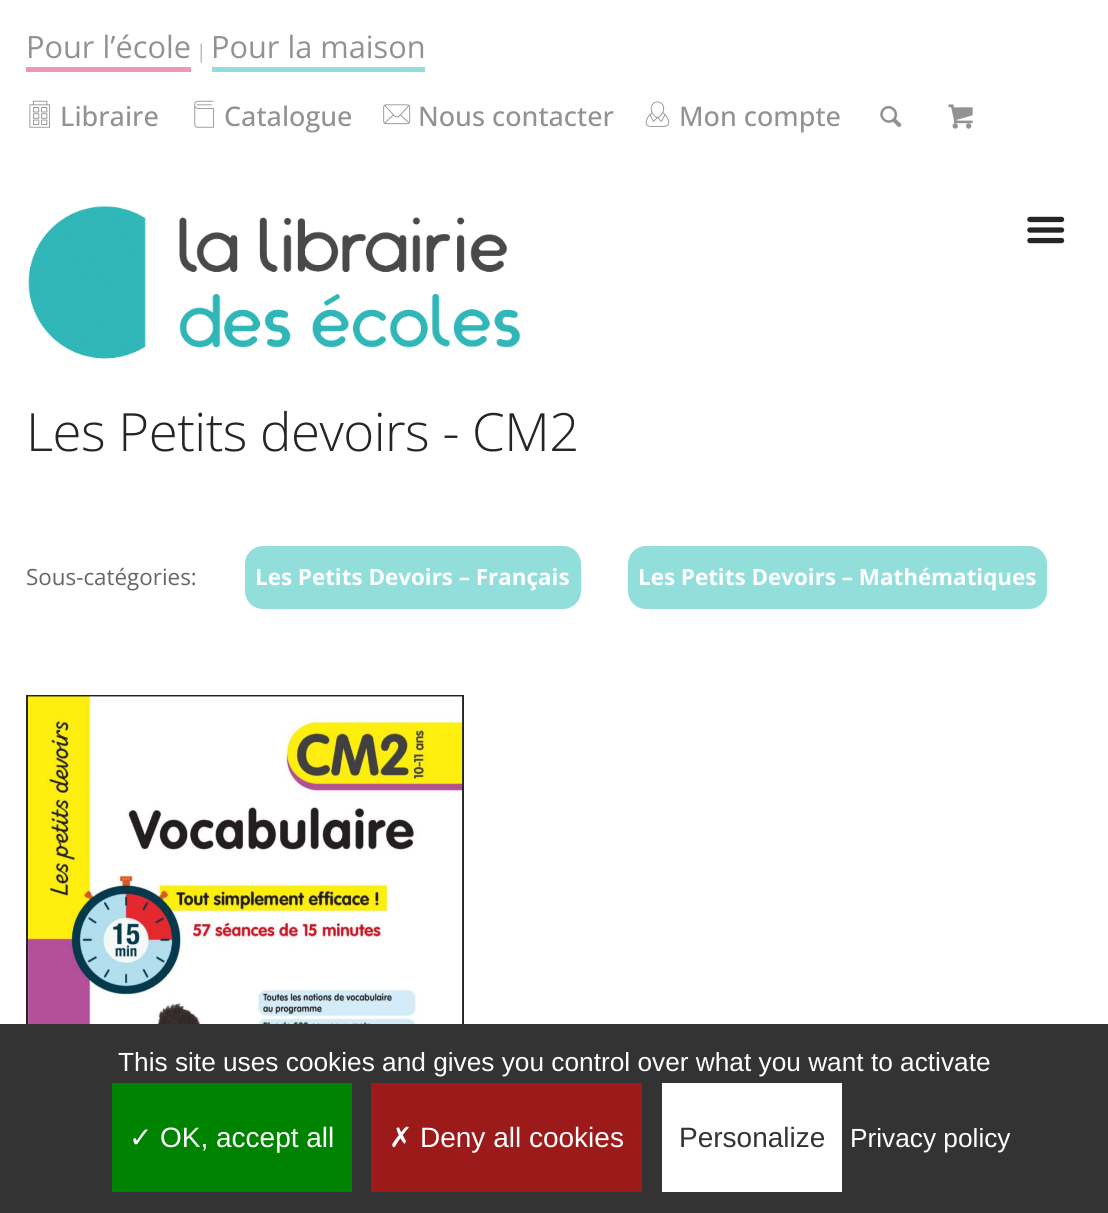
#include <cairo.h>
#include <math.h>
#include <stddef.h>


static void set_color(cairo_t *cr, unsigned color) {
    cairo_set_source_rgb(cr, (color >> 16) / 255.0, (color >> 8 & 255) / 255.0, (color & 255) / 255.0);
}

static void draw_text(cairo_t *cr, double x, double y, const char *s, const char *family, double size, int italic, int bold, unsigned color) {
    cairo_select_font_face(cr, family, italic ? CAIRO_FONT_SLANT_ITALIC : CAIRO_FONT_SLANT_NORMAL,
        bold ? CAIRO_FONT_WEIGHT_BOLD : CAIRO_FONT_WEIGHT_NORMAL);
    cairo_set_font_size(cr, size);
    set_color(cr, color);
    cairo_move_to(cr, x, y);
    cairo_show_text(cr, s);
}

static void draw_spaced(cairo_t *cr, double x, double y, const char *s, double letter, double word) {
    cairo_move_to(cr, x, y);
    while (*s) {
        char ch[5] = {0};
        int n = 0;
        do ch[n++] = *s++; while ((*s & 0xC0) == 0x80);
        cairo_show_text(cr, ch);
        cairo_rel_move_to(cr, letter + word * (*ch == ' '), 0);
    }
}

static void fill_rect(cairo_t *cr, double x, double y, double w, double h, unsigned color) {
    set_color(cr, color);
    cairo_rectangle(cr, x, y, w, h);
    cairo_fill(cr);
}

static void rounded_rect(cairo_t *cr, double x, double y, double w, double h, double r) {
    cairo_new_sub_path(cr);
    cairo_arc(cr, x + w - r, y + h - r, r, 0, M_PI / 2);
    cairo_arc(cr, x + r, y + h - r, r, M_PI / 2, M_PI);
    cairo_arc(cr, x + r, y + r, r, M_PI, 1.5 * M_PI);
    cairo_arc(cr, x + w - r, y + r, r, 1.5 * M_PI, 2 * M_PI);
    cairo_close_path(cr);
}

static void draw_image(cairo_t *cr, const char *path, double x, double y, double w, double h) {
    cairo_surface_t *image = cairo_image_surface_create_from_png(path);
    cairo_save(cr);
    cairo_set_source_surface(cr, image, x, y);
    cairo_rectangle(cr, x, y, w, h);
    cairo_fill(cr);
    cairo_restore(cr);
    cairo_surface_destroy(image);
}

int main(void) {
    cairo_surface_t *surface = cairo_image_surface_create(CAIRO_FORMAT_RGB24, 1108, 1213);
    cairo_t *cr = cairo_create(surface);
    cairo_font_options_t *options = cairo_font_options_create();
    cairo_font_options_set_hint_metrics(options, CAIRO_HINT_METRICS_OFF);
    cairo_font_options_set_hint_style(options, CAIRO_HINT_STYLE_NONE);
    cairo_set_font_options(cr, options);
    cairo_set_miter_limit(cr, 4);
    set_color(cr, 0xFFFFFF);
    cairo_paint(cr);
    draw_text(cr, 26, 58, "Pour l’école", "Open Sans", 30.75, 0, 0, 0x929292);
    draw_text(cr, 196, 58, "|", "Open Sans", 19, 0, 0, 0xB3B3B3);
    fill_rect(cr, 26, 67, 165, 5, 0xEF97B6);
    fill_rect(cr, 212, 67, 213, 5, 0x91DEDB);
    draw_text(cr, 211, 58, "Pour la maison", "Open Sans", 30.75, 0, 0, 0x929292);
    draw_image(cr, "assets/img1.png", 29, 100, 21, 28);
    draw_text(cr, 60, 126, "Libraire", "Open Sans Medium", 27, 0, 0, 0x929292);
    draw_image(cr, "assets/img2.png", 194, 100, 21, 28);
    draw_text(cr, 224, 126, "Catalogue", "Open Sans Medium", 27, 0, 0, 0x929292);
    draw_image(cr, "assets/img3.png", 383, 104, 28, 21);
    draw_text(cr, 418, 126, "Nous contacter", "Open Sans Medium", 27, 0, 0, 0x929292);
    draw_image(cr, "assets/img4.png", 645, 101, 25, 26);
    draw_text(cr, 679, 126, "Mon compte", "Open Sans Medium", 27, 0, 0, 0x929292);
    draw_image(cr, "assets/img5.png", 880, 106, 22, 22);
    draw_image(cr, "assets/img6.png", 948, 104, 25, 25);
    draw_image(cr, "assets/img7.png", 28, 206, 493, 153);
    draw_image(cr, "assets/img8.png", 1027, 216, 38, 28);
    cairo_select_font_face(cr, "Open Sans Light", CAIRO_FONT_SLANT_NORMAL, CAIRO_FONT_WEIGHT_NORMAL);
    cairo_set_font_size(cr, 52.75);
    set_color(cr, 0x252525);
    draw_spaced(cr, 26, 451, "Les Petits devoirs - CM2", -0.5, 0);
    draw_text(cr, 26, 585, "Sous-catégories:", "Open Sans", 22.4, 0, 0, 0x666666);
    set_color(cr, 0x91DEDB);
    rounded_rect(cr, 246, 547, 334, 61, 17);
    cairo_fill_preserve(cr);
    cairo_stroke(cr);
    draw_text(cr, 255, 585, "Les Petits Devoirs – Français", "Open Sans", 22.4, 0, 1, 0xFFFFFF);
    set_color(cr, 0x91DEDB);
    rounded_rect(cr, 629, 547, 417, 61, 17);
    cairo_fill_preserve(cr);
    cairo_stroke(cr);
    draw_text(cr, 638, 585, "Les Petits Devoirs – Mathématiques", "Open Sans", 22.4, 0, 1, 0xFFFFFF);
    cairo_rectangle(cr, 27, 696, 436, 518);
    set_color(cr, 0x252525);
    cairo_stroke(cr);
    draw_image(cr, "assets/img9.png", 28, 696, 435, 328);
    fill_rect(cr, 0, 1024, 1108, 189, 0x333333);
    draw_text(cr, 118, 1071, "This site uses cookies and gives you control over what you want to activate", "Liberation Sans", 26.25, 0, 0, 0xFFFFFF);
    fill_rect(cr, 112, 1083, 240, 109, 0x008300);
    draw_text(cr, 129, 1147, "✓", "DejaVu Sans", 28, 0, 0, 0xFFFFFF);
    draw_text(cr, 160, 1147, "OK, accept all", "Liberation Sans", 28, 0, 0, 0xFFFFFF);
    fill_rect(cr, 371, 1083, 271, 109, 0x9C1A1A);
    draw_text(cr, 389, 1147, "✗", "DejaVu Sans", 28, 0, 0, 0xFFFFFF);
    draw_text(cr, 420, 1147, "Deny all cookies", "Liberation Sans", 28, 0, 0, 0xFFFFFF);
    fill_rect(cr, 662, 1083, 180, 109, 0xFFFFFF);
    draw_text(cr, 679, 1147, "Personalize", "Liberation Sans", 28, 0, 0, 0x333333);
    draw_text(cr, 850, 1147, "Privacy policy", "Liberation Sans", 26.25, 0, 0, 0xFFFFFF);
    cairo_surface_write_to_png(surface, "output.png");
    cairo_font_options_destroy(options);
    cairo_destroy(cr);
    cairo_surface_destroy(surface);
    return 0;
}
